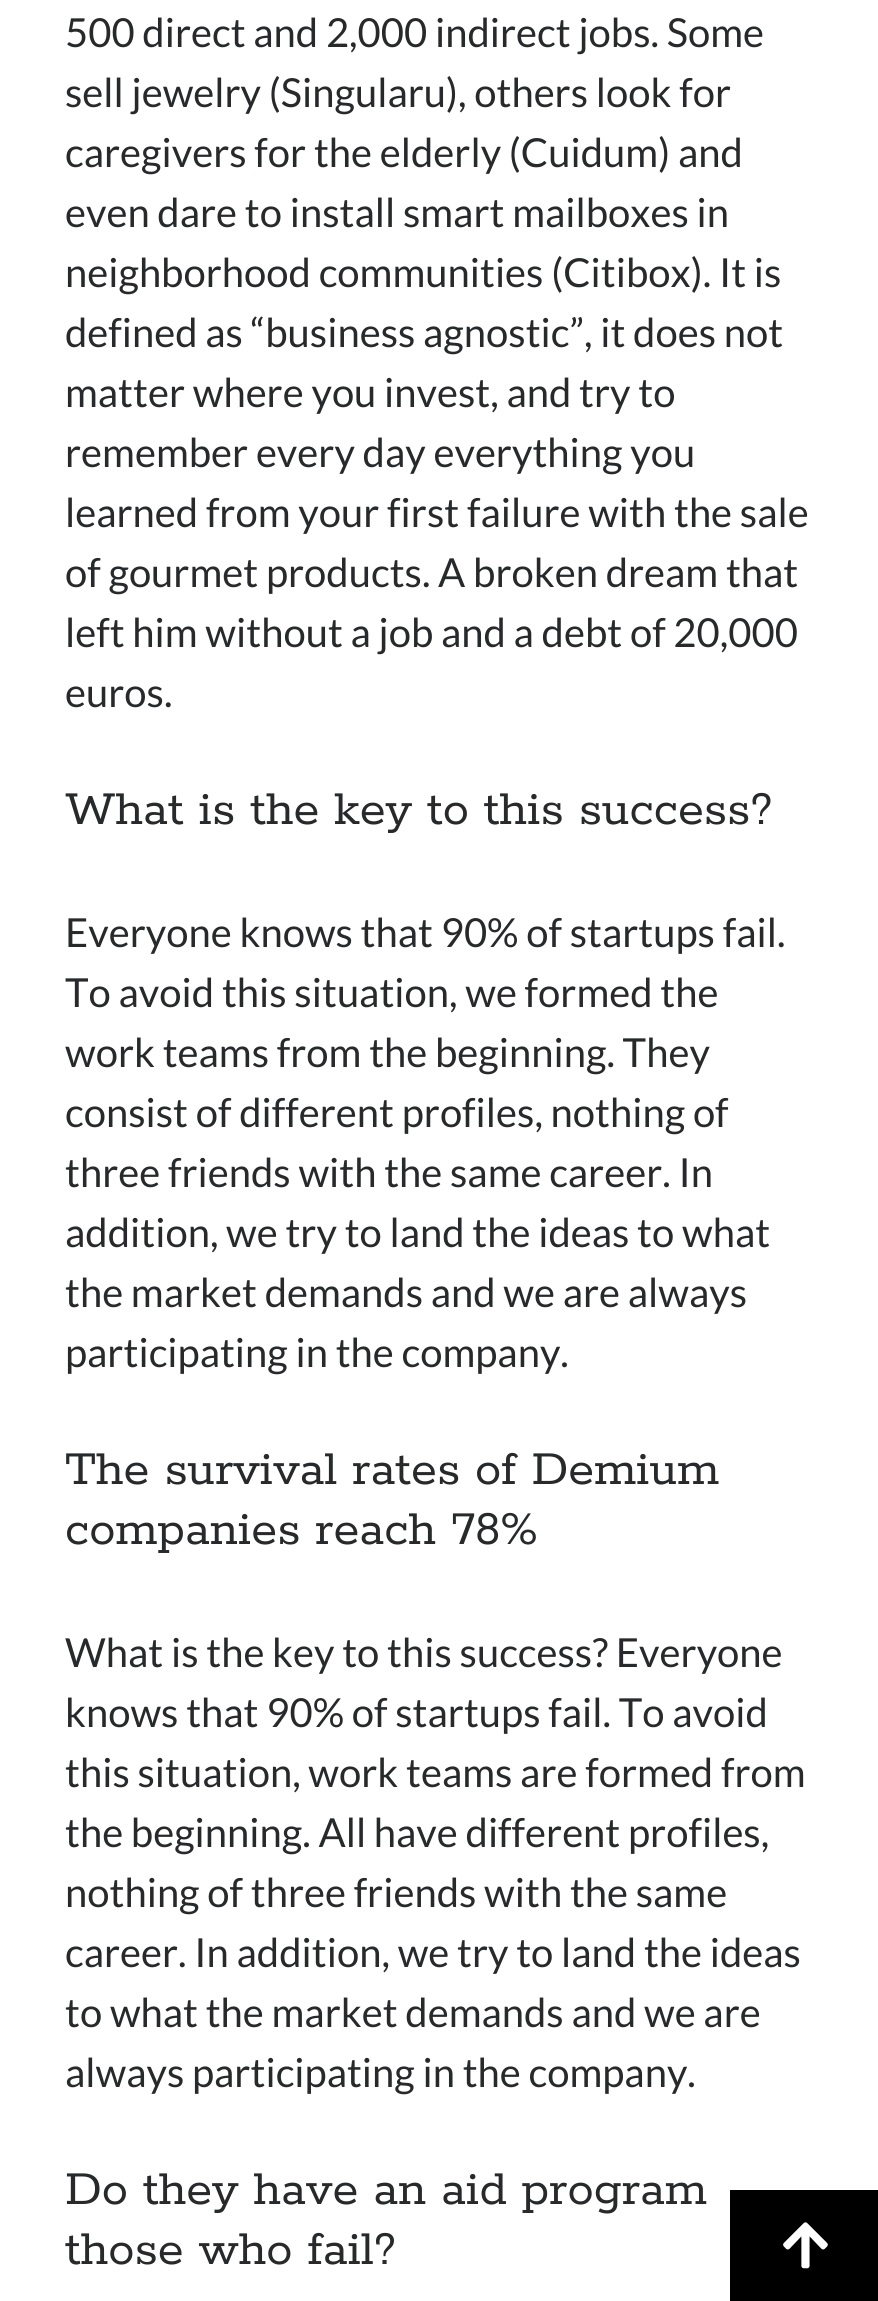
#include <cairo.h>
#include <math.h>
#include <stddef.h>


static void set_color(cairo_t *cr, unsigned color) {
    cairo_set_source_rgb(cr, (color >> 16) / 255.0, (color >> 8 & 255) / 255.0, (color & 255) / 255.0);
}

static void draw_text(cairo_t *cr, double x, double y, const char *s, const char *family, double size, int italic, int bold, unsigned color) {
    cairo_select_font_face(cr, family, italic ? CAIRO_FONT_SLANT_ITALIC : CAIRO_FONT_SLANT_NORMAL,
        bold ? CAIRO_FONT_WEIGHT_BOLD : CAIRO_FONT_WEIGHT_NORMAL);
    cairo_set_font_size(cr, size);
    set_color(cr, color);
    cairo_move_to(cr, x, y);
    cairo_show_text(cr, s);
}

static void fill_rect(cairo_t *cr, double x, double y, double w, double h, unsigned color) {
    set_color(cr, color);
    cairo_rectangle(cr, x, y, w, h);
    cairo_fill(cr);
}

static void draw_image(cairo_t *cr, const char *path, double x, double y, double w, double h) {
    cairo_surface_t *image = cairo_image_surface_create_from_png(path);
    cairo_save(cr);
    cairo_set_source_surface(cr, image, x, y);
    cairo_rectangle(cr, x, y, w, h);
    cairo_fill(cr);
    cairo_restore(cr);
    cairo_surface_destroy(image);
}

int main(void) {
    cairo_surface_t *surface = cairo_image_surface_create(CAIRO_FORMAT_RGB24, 878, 2301);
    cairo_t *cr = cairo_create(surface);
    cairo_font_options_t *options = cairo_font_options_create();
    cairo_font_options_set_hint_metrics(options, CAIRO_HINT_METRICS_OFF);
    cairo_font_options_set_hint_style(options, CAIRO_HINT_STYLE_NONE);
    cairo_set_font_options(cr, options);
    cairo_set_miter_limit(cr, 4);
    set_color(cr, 0xFFFFFF);
    cairo_paint(cr);
    draw_text(cr, 65, 47, "500 direct and 2,000 indirect jobs. Some", "Lato", 40, 0, 0, 0x27292B);
    draw_text(cr, 65, 107, "sell jewelry (Singularu), others look for", "Lato", 40, 0, 0, 0x27292B);
    draw_text(cr, 65, 167, "caregivers for the elderly (Cuidum) and", "Lato", 40, 0, 0, 0x27292B);
    draw_text(cr, 65, 227, "even dare to install smart mailboxes in", "Lato", 40, 0, 0, 0x27292B);
    draw_text(cr, 65, 287, "neighborhood communities (Citibox). It is", "Lato", 40, 0, 0, 0x27292B);
    draw_text(cr, 65, 347, "defined as “business agnostic”, it does not", "Lato", 40, 0, 0, 0x27292B);
    draw_text(cr, 65, 407, "matter where you invest, and try to", "Lato", 40, 0, 0, 0x27292B);
    draw_text(cr, 65, 467, "remember every day everything you", "Lato", 40, 0, 0, 0x27292B);
    draw_text(cr, 65, 527, "learned from your first failure with the sale", "Lato", 40, 0, 0, 0x27292B);
    draw_text(cr, 65, 587, "of gourmet products. A broken dream that", "Lato", 40, 0, 0, 0x27292B);
    draw_text(cr, 65, 647, "left him without a job and a debt of 20,000", "Lato", 40, 0, 0, 0x27292B);
    draw_text(cr, 65, 707, "euros.", "Lato", 40, 0, 0, 0x27292B);
    draw_text(cr, 65, 824, "What is the key to this success?", "Rokkitt", 52.5, 0, 0, 0x27292B);
    draw_text(cr, 65, 947, "Everyone knows that 90% of startups fail.", "Lato", 40, 0, 0, 0x27292B);
    draw_text(cr, 65, 1007, "To avoid this situation, we formed the", "Lato", 40, 0, 0, 0x27292B);
    draw_text(cr, 65, 1067, "work teams from the beginning. They", "Lato", 40, 0, 0, 0x27292B);
    draw_text(cr, 65, 1127, "consist of different profiles, nothing of", "Lato", 40, 0, 0, 0x27292B);
    draw_text(cr, 65, 1187, "three friends with the same career. In", "Lato", 40, 0, 0, 0x27292B);
    draw_text(cr, 65, 1247, "addition, we try to land the ideas to what", "Lato", 40, 0, 0, 0x27292B);
    draw_text(cr, 65, 1307, "the market demands and we are always", "Lato", 40, 0, 0, 0x27292B);
    draw_text(cr, 65, 1367, "participating in the company.", "Lato", 40, 0, 0, 0x27292B);
    draw_text(cr, 65, 1484, "The survival rates of Demium", "Rokkitt", 52.5, 0, 0, 0x27292B);
    draw_text(cr, 65, 1544, "companies reach 78%", "Rokkitt", 52.5, 0, 0, 0x27292B);
    draw_text(cr, 65, 1667, "What is the key to this success? Everyone", "Lato", 40, 0, 0, 0x27292B);
    draw_text(cr, 65, 1727, "knows that 90% of startups fail. To avoid", "Lato", 40, 0, 0, 0x27292B);
    draw_text(cr, 65, 1787, "this situation, work teams are formed from", "Lato", 40, 0, 0, 0x27292B);
    draw_text(cr, 65, 1847, "the beginning. All have different profiles,", "Lato", 40, 0, 0, 0x27292B);
    draw_text(cr, 65, 1907, "nothing of three friends with the same", "Lato", 40, 0, 0, 0x27292B);
    draw_text(cr, 65, 1967, "career. In addition, we try to land the ideas", "Lato", 40, 0, 0, 0x27292B);
    draw_text(cr, 65, 2027, "to what the market demands and we are", "Lato", 40, 0, 0, 0x27292B);
    draw_text(cr, 65, 2087, "always participating in the company.", "Lato", 40, 0, 0, 0x27292B);
    draw_text(cr, 65, 2204, "Do they have an aid program", "Rokkitt", 52.5, 0, 0, 0x27292B);
    draw_text(cr, 65, 2264, "those who fail?", "Rokkitt", 52.5, 0, 0, 0x27292B);
    fill_rect(cr, 730, 2190, 148, 111, 0x000000);
    draw_image(cr, "assets/img1.png", 783, 2222, 45, 47);
    cairo_surface_write_to_png(surface, "output.png");
    cairo_font_options_destroy(options);
    cairo_destroy(cr);
    cairo_surface_destroy(surface);
    return 0;
}
